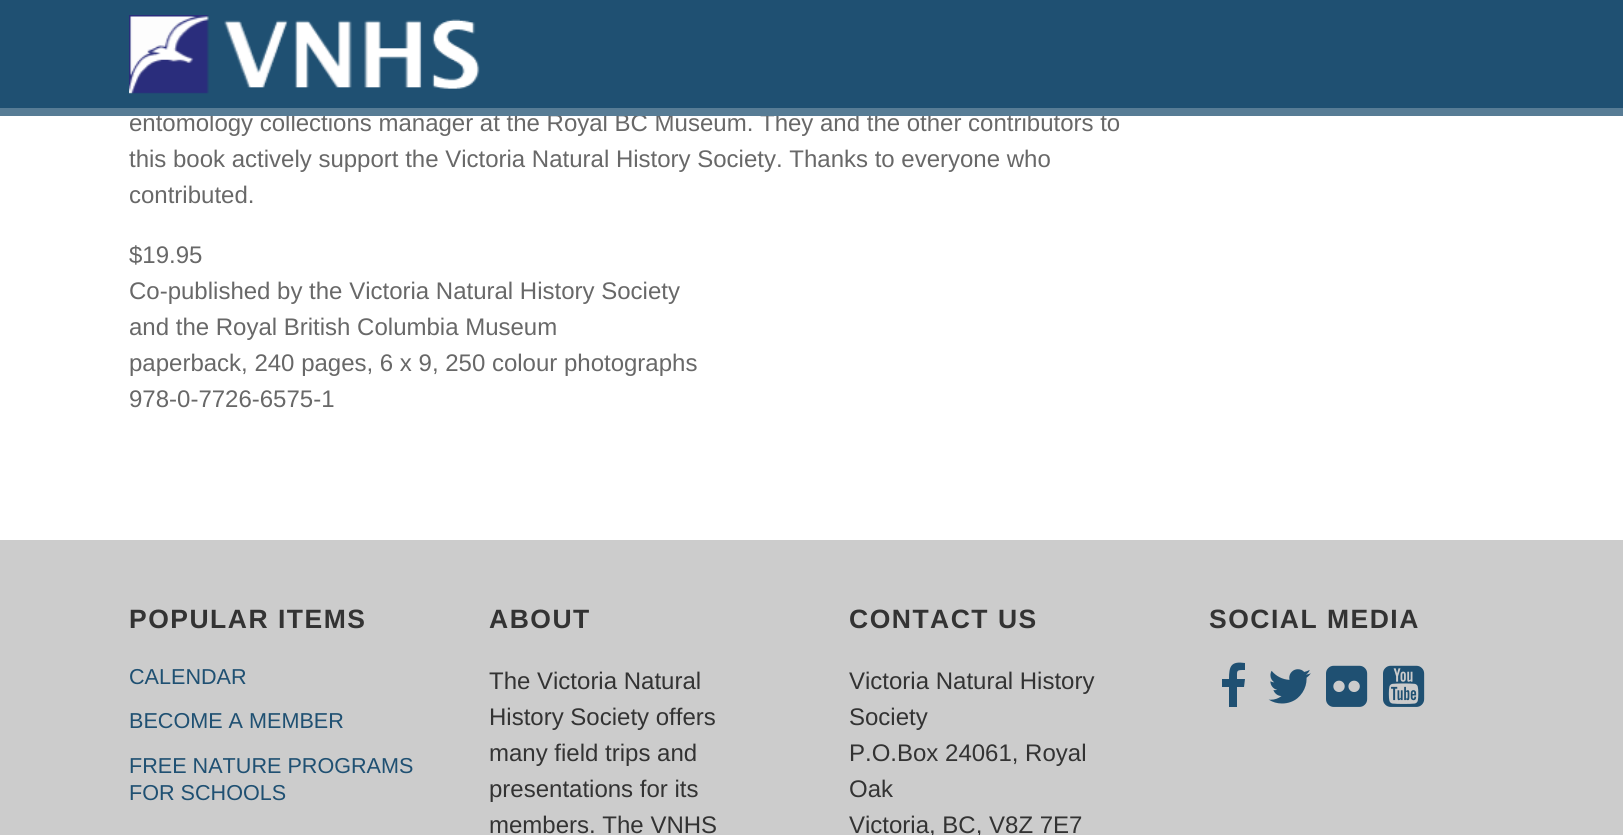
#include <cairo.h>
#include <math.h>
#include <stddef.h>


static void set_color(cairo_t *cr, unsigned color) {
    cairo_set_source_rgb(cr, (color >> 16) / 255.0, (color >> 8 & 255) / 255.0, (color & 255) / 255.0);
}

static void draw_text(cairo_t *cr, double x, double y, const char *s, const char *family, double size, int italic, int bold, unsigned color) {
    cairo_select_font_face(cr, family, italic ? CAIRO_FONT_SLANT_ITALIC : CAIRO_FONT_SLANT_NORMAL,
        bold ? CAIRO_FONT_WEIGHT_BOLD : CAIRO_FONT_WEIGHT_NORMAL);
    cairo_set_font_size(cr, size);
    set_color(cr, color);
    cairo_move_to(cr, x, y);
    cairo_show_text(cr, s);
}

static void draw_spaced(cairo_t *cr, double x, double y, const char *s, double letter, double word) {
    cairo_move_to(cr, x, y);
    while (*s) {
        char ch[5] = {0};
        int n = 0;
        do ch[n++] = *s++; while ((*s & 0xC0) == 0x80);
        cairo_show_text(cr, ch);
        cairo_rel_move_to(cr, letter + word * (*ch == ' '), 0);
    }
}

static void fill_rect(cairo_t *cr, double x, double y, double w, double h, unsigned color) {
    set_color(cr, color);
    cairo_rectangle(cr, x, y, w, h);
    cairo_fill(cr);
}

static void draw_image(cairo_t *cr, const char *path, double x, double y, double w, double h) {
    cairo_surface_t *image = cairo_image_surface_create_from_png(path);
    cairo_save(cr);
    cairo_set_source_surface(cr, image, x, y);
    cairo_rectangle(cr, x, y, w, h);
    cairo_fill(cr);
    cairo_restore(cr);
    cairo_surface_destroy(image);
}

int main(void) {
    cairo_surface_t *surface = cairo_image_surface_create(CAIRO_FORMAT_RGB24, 1623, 835);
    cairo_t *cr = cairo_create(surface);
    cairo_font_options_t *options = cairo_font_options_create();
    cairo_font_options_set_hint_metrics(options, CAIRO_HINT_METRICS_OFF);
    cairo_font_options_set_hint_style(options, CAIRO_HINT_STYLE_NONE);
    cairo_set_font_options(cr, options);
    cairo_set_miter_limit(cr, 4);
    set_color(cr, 0xFFFFFF);
    cairo_paint(cr);
    fill_rect(cr, 0, 0, 1623, 108, 0x1F5072);
    draw_text(cr, 129, 131, "entomology collections manager at the Royal BC Museum. They and the other contributors to", "Liberation Sans", 24, 0, 0, 0x686868);
    fill_rect(cr, 0, 108, 1623, 8, 0x577C95);
    draw_image(cr, "assets/img1.png", 129, 15, 351, 79);
    draw_text(cr, 129, 167, "this book actively support the Victoria Natural History Society. Thanks to everyone who", "Liberation Sans", 24, 0, 0, 0x686868);
    draw_text(cr, 129, 203, "contributed.", "Liberation Sans", 24, 0, 0, 0x686868);
    draw_text(cr, 129, 263, "$19.95", "Liberation Sans", 24, 0, 0, 0x686868);
    draw_text(cr, 129, 299, "Co-published by the Victoria Natural History Society", "Liberation Sans", 24, 0, 0, 0x686868);
    draw_text(cr, 129, 335, "and the Royal British Columbia Museum", "Liberation Sans", 24, 0, 0, 0x686868);
    draw_text(cr, 129, 371, "paperback, 240 pages, 6 x 9, 250 colour photographs", "Liberation Sans", 24, 0, 0, 0x686868);
    draw_text(cr, 129, 407, "978-0-7726-6575-1", "Liberation Sans", 24, 0, 0, 0x686868);
    fill_rect(cr, 0, 540, 1623, 295, 0xCCCCCC);
    cairo_select_font_face(cr, "Liberation Sans", CAIRO_FONT_SLANT_NORMAL, CAIRO_FONT_WEIGHT_BOLD);
    cairo_set_font_size(cr, 26.5);
    set_color(cr, 0x333333);
    draw_spaced(cr, 129, 628, "POPULAR ITEMS", 1.5, 0);
    draw_text(cr, 129, 684, "CALENDAR", "Liberation Sans", 21.6, 0, 0, 0x1F5072);
    draw_text(cr, 129, 728, "BECOME A MEMBER", "Liberation Sans", 21.6, 0, 0, 0x1F5072);
    draw_text(cr, 129, 773, "FREE NATURE PROGRAMS", "Liberation Sans", 21.6, 0, 0, 0x1F5072);
    draw_text(cr, 129, 800, "FOR SCHOOLS", "Liberation Sans", 21.6, 0, 0, 0x1F5072);
    cairo_select_font_face(cr, "Liberation Sans", CAIRO_FONT_SLANT_NORMAL, CAIRO_FONT_WEIGHT_BOLD);
    cairo_set_font_size(cr, 26.5);
    set_color(cr, 0x333333);
    draw_spaced(cr, 489, 628, "ABOUT", 1.5, 0);
    draw_text(cr, 489, 689, "The Victoria Natural", "Liberation Sans", 24, 0, 0, 0x333333);
    draw_text(cr, 489, 725, "History Society offers", "Liberation Sans", 24, 0, 0, 0x333333);
    draw_text(cr, 489, 761, "many field trips and", "Liberation Sans", 24, 0, 0, 0x333333);
    draw_text(cr, 489, 797, "presentations for its", "Liberation Sans", 24, 0, 0, 0x333333);
    draw_text(cr, 489, 833, "members. The VNHS", "Liberation Sans", 24, 0, 0, 0x333333);
    cairo_select_font_face(cr, "Liberation Sans", CAIRO_FONT_SLANT_NORMAL, CAIRO_FONT_WEIGHT_BOLD);
    cairo_set_font_size(cr, 26.5);
    draw_spaced(cr, 849, 628, "CONTACT US", 1.5, 0);
    draw_text(cr, 849, 689, "Victoria Natural History", "Liberation Sans", 24, 0, 0, 0x333333);
    draw_text(cr, 849, 725, "Society", "Liberation Sans", 24, 0, 0, 0x333333);
    draw_text(cr, 849, 761, "P.O.Box 24061, Royal", "Liberation Sans", 24, 0, 0, 0x333333);
    draw_text(cr, 849, 797, "Oak", "Liberation Sans", 24, 0, 0, 0x333333);
    draw_text(cr, 849, 833, "Victoria, BC, V8Z 7E7", "Liberation Sans", 24, 0, 0, 0x333333);
    cairo_select_font_face(cr, "Liberation Sans", CAIRO_FONT_SLANT_NORMAL, CAIRO_FONT_WEIGHT_BOLD);
    cairo_set_font_size(cr, 26.5);
    draw_spaced(cr, 1209, 628, "SOCIAL MEDIA", 1.5, 0);
    set_color(cr, 0x1F5072);
    cairo_new_path(cr);
    cairo_move_to(cr, 1245, 663);
    cairo_line_to(cr, 1245, 670);
    cairo_curve_to(cr, 1236, 670, 1237, 670, 1237, 679);
    cairo_line_to(cr, 1245, 679);
    cairo_line_to(cr, 1244, 687);
    cairo_line_to(cr, 1237, 687);
    cairo_line_to(cr, 1237, 707);
    cairo_line_to(cr, 1229, 707);
    cairo_line_to(cr, 1229, 687);
    cairo_line_to(cr, 1222, 687);
    cairo_line_to(cr, 1222, 679);
    cairo_line_to(cr, 1229, 679);
    cairo_curve_to(cr, 1229, 666, 1231, 661, 1245, 663);
    cairo_close_path(cr);
    cairo_fill(cr);
    draw_image(cr, "assets/img2.png", 1268, 669, 43, 35);
    draw_image(cr, "assets/img3.png", 1326, 665, 42, 42);
    draw_image(cr, "assets/img4.png", 1383, 665, 42, 42);
    cairo_surface_write_to_png(surface, "output.png");
    cairo_font_options_destroy(options);
    cairo_destroy(cr);
    cairo_surface_destroy(surface);
    return 0;
}
